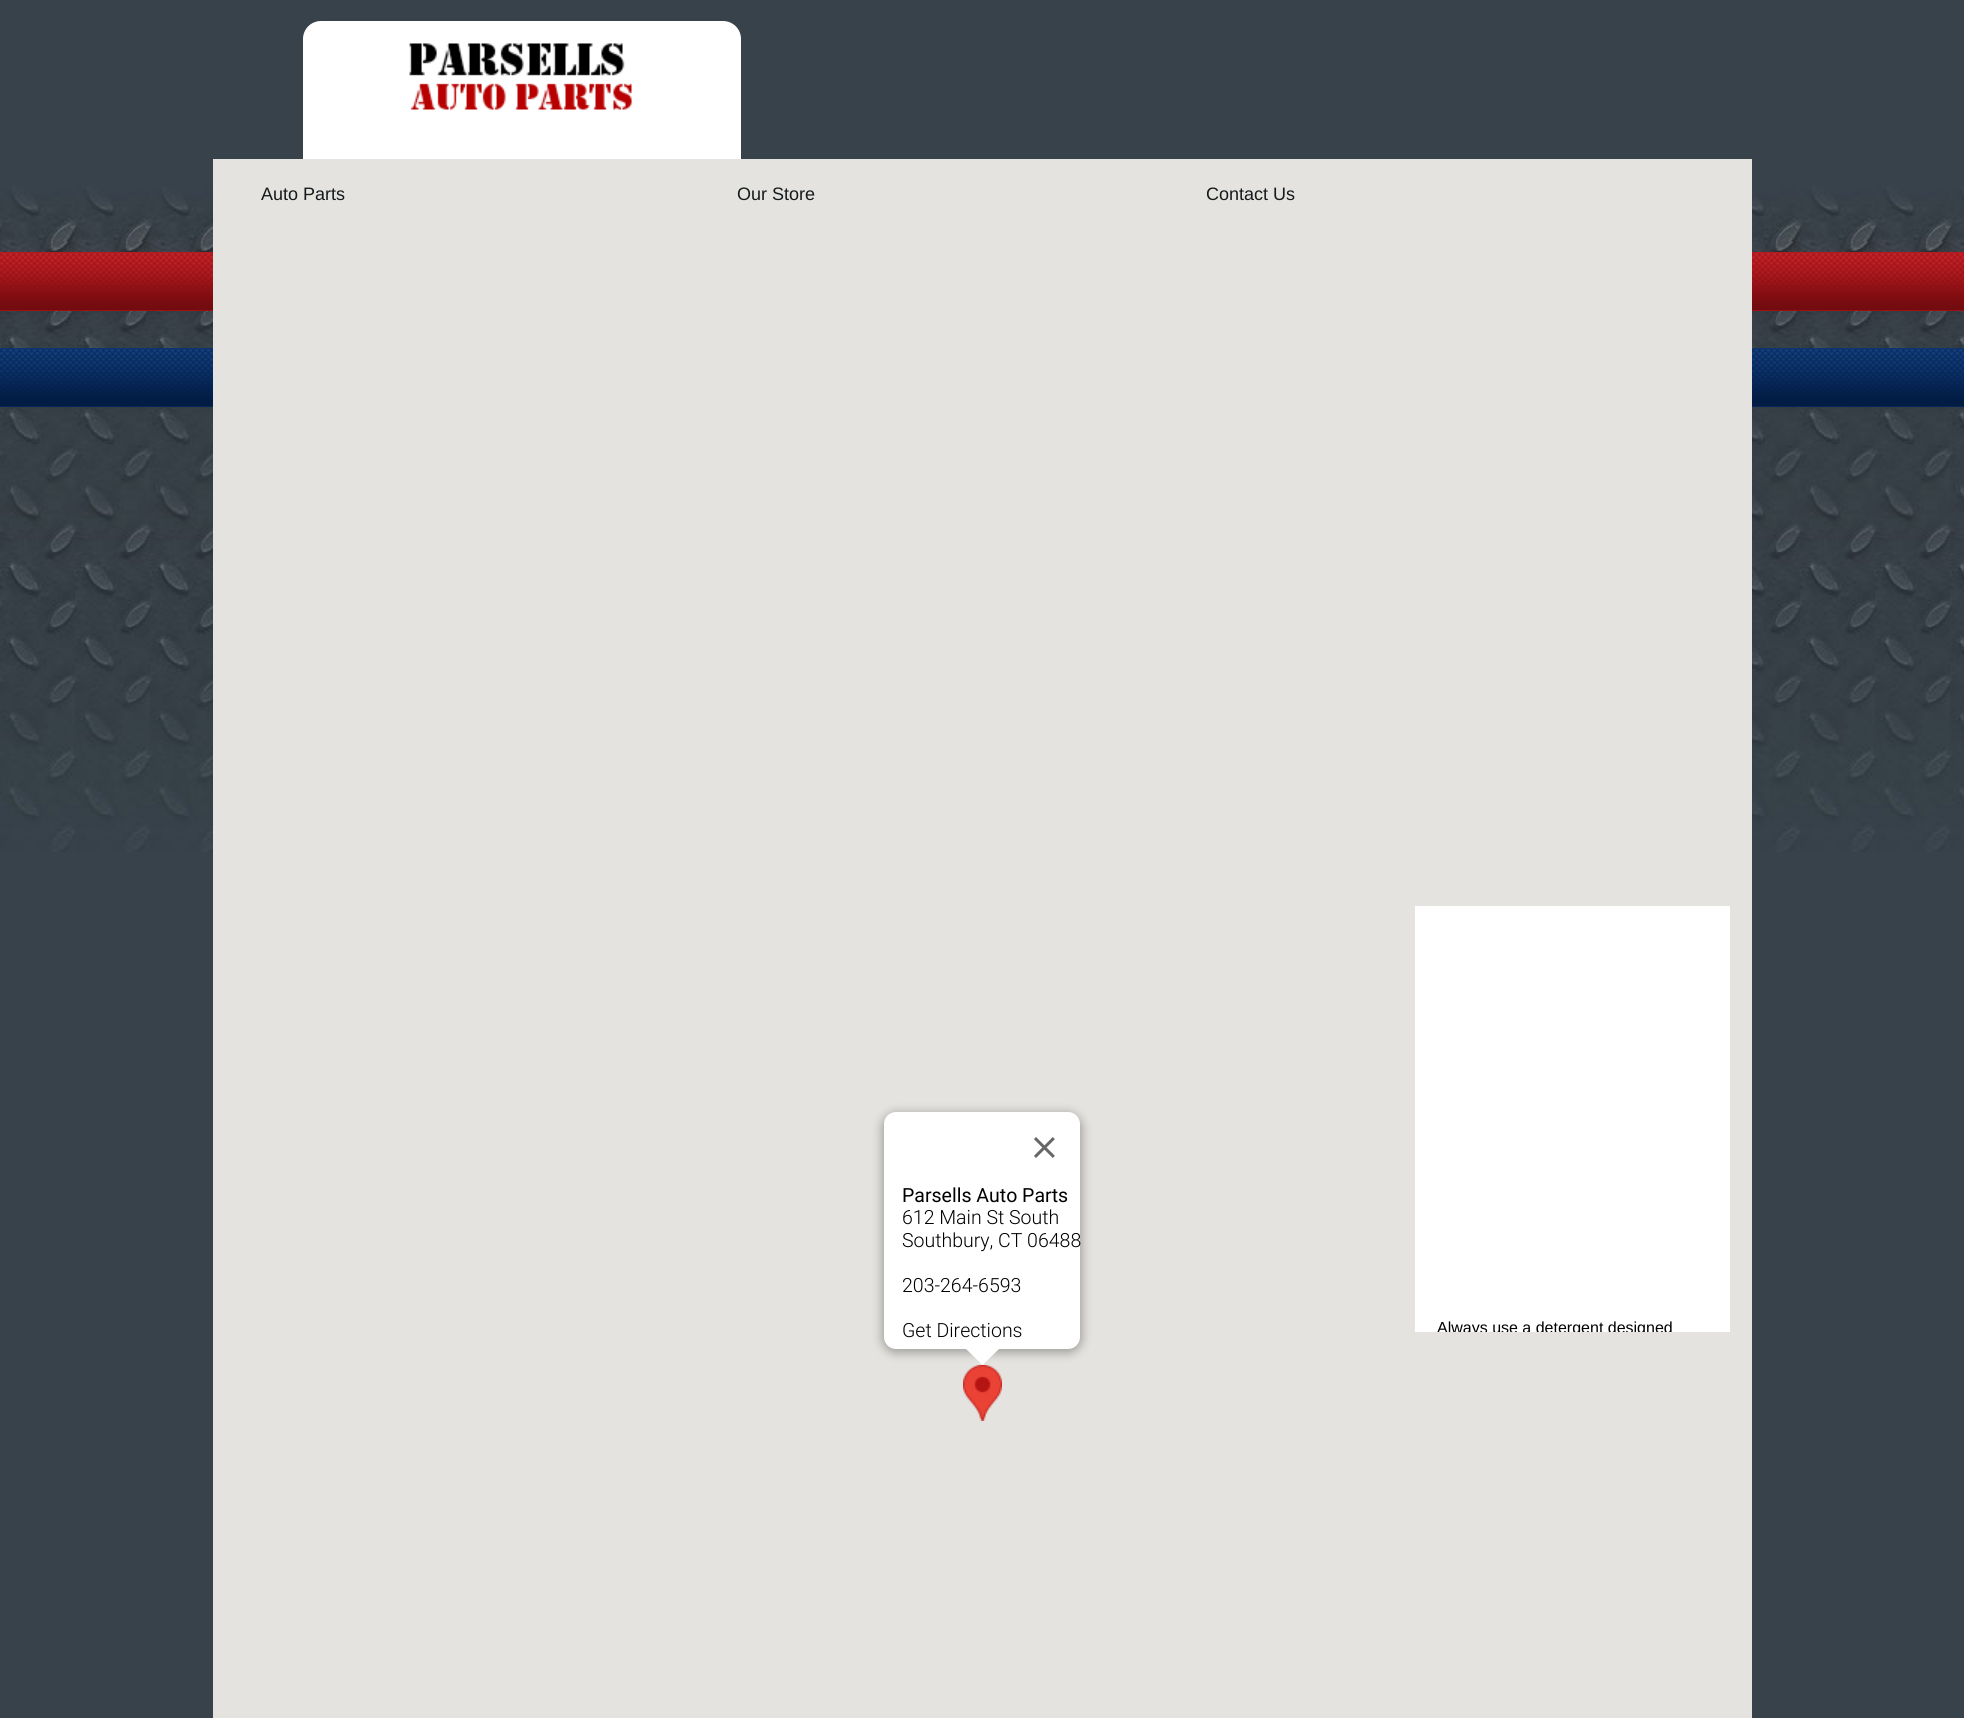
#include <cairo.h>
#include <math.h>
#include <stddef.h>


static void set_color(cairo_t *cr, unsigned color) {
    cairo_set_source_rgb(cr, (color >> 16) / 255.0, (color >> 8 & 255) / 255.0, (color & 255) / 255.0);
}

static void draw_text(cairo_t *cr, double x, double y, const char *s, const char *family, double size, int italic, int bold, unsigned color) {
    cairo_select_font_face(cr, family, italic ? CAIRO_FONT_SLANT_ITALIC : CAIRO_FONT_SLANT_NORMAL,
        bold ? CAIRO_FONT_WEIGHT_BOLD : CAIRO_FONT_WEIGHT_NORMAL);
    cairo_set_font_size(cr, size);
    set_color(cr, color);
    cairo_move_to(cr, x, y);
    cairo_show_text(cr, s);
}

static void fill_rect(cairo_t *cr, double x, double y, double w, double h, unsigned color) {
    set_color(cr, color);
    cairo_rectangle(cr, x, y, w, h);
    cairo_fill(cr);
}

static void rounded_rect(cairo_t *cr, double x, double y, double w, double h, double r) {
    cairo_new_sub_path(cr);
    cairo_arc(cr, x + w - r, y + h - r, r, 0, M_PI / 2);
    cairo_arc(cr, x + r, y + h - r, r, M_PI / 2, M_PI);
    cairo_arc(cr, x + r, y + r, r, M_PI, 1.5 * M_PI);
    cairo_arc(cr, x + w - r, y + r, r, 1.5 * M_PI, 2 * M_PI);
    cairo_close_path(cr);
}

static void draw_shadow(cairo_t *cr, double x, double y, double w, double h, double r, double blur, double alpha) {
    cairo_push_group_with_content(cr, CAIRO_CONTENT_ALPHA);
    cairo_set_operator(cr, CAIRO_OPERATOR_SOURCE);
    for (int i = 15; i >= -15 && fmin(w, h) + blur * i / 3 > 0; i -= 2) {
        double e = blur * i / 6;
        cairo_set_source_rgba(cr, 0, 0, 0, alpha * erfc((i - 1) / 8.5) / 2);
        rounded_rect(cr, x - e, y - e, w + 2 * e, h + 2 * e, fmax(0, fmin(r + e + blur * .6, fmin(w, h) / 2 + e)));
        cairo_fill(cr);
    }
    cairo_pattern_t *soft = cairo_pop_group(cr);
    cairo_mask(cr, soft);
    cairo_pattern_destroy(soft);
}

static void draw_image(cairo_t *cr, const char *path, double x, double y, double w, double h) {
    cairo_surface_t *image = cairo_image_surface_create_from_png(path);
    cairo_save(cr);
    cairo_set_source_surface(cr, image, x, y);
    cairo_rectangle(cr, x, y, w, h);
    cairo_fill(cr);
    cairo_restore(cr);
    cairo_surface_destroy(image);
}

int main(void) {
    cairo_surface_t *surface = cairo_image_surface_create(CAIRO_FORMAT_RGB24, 1964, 1718);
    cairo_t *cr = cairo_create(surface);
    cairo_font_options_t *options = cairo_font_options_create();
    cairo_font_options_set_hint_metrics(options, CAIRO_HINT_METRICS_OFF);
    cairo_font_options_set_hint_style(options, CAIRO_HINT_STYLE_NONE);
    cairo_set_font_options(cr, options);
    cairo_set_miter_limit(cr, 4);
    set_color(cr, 0x37424A);
    cairo_paint(cr);
    draw_image(cr, "assets/img1.png", 0, 186, 1964, 666);
    set_color(cr, 0xFFFFFF);
    cairo_new_path(cr);
    cairo_move_to(cr, 321, 21);
    cairo_line_to(cr, 723, 21);
    cairo_curve_to(cr, 733, 21, 741, 29, 741, 39);
    cairo_line_to(cr, 741, 159);
    cairo_line_to(cr, 303, 159);
    cairo_line_to(cr, 303, 39);
    cairo_curve_to(cr, 303, 29, 311, 21, 321, 21);
    cairo_close_path(cr);
    cairo_fill(cr);
    draw_image(cr, "assets/img2.png", 409, 43, 224, 67);
    fill_rect(cr, 0, 252, 1964, 59, 0xC7141A);
    draw_image(cr, "assets/img5.png", 0, 252, 1964, 59);
    fill_rect(cr, 0, 348, 1964, 59, 0x043174);
    draw_image(cr, "assets/img6.png", 0, 348, 1964, 59);
    fill_rect(cr, 213, 159, 1539, 1559, 0xE5E3DF);
    draw_text(cr, 261, 200, "Auto Parts", "Liberation Sans", 18, 0, 0, 0x151A1D);
    draw_text(cr, 737, 200, "Our Store", "Liberation Sans", 18, 0, 0, 0x151A1D);
    draw_text(cr, 1206, 200, "Contact Us", "Liberation Sans", 18, 0, 0, 0x151A1D);
    draw_image(cr, "assets/img4.png", 963, 1365, 39, 56);
    set_color(cr, 0x000000);
    draw_shadow(cr, 882, 1113, 200, 240, 14, 5, 0.3);
    set_color(cr, 0xFFFFFF);
    rounded_rect(cr, 884, 1112, 196, 237, 12);
    cairo_fill(cr);
    draw_image(cr, "assets/img3.png", 1034, 1137, 21, 21);
    draw_text(cr, 902, 1202, "Parsells Auto Parts", "Roboto", 19.5, 0, 0, 0x000000);
    draw_text(cr, 902, 1224, "612 Main St South", "Roboto Light", 19.5, 0, 0, 0x000000);
    draw_text(cr, 902, 1247, "Southbury, CT 06488", "Roboto Light", 19.5, 0, 0, 0x000000);
    draw_text(cr, 902, 1292, "203-264-6593", "Roboto Light", 19.5, 0, 0, 0x000000);
    draw_text(cr, 902, 1337, "Get Directions", "Roboto Light", 19.5, 0, 0, 0x000000);
    set_color(cr, 0xFFFFFF);
    cairo_new_path(cr);
    cairo_move_to(cr, 965, 1347);
    cairo_line_to(cr, 965, 1348);
    cairo_line_to(cr, 982.5, 1365);
    cairo_line_to(cr, 1001, 1347);
    cairo_close_path(cr);
    cairo_fill(cr);
    fill_rect(cr, 1415, 906, 315, 426, 0xFFFFFF);
    cairo_save(cr);
    cairo_rectangle(cr, 1415, 906, 315, 426);
    cairo_clip(cr);
    draw_text(cr, 1437, 1333, "Always use a detergent designed", "Liberation Sans", 16, 0, 0, 0x000000);
    cairo_restore(cr);
    cairo_surface_write_to_png(surface, "output.png");
    cairo_font_options_destroy(options);
    cairo_destroy(cr);
    cairo_surface_destroy(surface);
    return 0;
}
